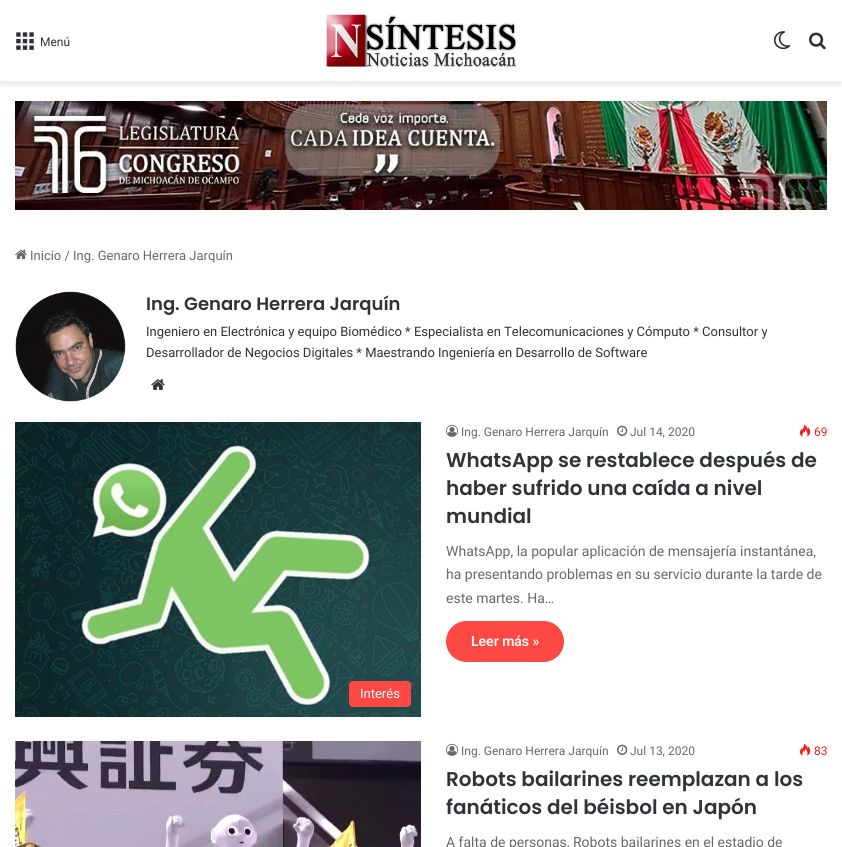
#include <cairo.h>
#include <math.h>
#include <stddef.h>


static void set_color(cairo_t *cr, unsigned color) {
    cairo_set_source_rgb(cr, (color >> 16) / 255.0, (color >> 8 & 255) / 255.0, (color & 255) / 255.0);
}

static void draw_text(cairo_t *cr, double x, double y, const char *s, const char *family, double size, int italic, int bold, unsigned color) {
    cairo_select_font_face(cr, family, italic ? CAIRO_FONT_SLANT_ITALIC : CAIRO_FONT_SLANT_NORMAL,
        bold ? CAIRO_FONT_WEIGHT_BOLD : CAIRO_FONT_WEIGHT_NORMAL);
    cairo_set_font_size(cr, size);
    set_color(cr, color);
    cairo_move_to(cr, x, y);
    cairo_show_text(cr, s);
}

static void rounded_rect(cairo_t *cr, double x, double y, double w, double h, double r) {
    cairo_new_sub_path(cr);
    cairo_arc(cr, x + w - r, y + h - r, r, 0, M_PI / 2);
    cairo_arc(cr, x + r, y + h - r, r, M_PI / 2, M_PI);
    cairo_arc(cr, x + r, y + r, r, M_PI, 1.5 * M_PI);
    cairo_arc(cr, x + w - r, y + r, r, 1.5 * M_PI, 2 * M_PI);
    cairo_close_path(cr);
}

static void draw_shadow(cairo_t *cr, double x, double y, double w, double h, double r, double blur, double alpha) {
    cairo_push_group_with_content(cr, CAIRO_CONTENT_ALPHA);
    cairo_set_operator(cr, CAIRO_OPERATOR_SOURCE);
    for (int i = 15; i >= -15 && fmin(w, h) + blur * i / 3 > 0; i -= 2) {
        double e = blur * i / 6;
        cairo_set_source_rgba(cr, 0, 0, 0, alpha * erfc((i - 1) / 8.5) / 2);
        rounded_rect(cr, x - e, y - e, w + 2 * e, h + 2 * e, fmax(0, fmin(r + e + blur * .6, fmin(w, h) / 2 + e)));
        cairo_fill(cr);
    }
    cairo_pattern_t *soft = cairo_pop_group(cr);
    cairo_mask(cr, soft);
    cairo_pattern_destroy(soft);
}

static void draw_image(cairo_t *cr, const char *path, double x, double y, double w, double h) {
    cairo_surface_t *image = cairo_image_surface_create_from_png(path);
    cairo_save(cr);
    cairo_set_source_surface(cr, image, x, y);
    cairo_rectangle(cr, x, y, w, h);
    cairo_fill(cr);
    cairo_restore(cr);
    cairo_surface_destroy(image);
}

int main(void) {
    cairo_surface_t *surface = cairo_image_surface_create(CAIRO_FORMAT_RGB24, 842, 847);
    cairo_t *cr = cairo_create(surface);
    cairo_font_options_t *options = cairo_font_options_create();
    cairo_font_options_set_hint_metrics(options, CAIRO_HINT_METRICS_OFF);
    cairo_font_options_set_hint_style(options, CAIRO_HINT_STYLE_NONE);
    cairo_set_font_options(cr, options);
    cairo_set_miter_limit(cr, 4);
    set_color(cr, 0xFFFFFF);
    cairo_paint(cr);
    cairo_save(cr);
    cairo_rectangle(cr, 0, 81, 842, 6);
    cairo_clip(cr);
    set_color(cr, 0x000000);
    draw_shadow(cr, 0, 3, 842, 81, 0, 3.5, 0.1);
    cairo_restore(cr);
    draw_image(cr, "assets/img1.png", 16, 32, 18, 18);
    draw_text(cr, 40, 46, "Menú", "Roboto", 12, 0, 0, 0x303338);
    draw_image(cr, "assets/img2.png", 326, 14, 190, 53);
    draw_image(cr, "assets/img3.png", 774, 31, 17, 19);
    draw_image(cr, "assets/img4.png", 809, 32, 17, 18);
    draw_image(cr, "assets/img5.png", 15, 101, 812, 109);
    draw_image(cr, "assets/img6.png", 15, 249, 12, 11);
    draw_text(cr, 30, 260, "Inicio / Ing. Genaro Herrera Jarquín", "Roboto", 13, 0, 0, 0x686868);
    draw_image(cr, "assets/img7.png", 15, 291, 111, 111);
    draw_text(cr, 146, 310, "Ing. Genaro Herrera Jarquín", "Poppins SemiBold", 18, 0, 0, 0x303338);
    draw_text(cr, 146, 336, "Ingeniero en Electrónica y equipo Biomédico * Especialista en Telecomunicaciones y Cómputo * Consultor y", "Roboto", 13, 0, 0, 0x303338);
    draw_text(cr, 146, 357, "Desarrollador de Negocios Digitales * Maestrando Ingeniería en Desarrollo de Software", "Roboto", 13, 0, 0, 0x303338);
    draw_image(cr, "assets/img8.png", 151, 379, 14, 11);
    draw_image(cr, "assets/img9.png", 446, 424, 12, 13);
    draw_text(cr, 461, 436, "Ing. Genaro Herrera Jarquín", "Roboto", 12, 0, 0, 0x686868);
    draw_image(cr, "assets/img10.png", 617, 425, 11, 11);
    draw_text(cr, 630, 436, "Jul 14, 2020", "Roboto", 12, 0, 0, 0x686868);
    draw_image(cr, "assets/img11.png", 799, 424, 12, 13);
    draw_text(cr, 814, 436, "69", "Roboto", 12, 0, 0, 0xF12020);
    draw_text(cr, 446, 467, "WhatsApp se restablece después de", "Poppins SemiBold", 20, 0, 0, 0x303338);
    draw_text(cr, 446, 495, "haber sufrido una caída a nivel", "Poppins SemiBold", 20, 0, 0, 0x303338);
    draw_text(cr, 446, 523, "mundial", "Poppins SemiBold", 20, 0, 0, 0x303338);
    draw_text(cr, 446, 556, "WhatsApp, la popular aplicación de mensajería instantánea,", "Roboto", 14, 0, 0, 0x686868);
    draw_text(cr, 446, 579, "ha presentando problemas en su servicio durante la tarde de", "Roboto", 14, 0, 0, 0x686868);
    draw_text(cr, 446, 603, "este martes. Ha…", "Roboto", 14, 0, 0, 0x686868);
    set_color(cr, 0xFE4843);
    rounded_rect(cr, 446, 621, 118, 41, 20.5);
    cairo_fill(cr);
    draw_text(cr, 471, 646, "Leer más »", "Roboto SemiBold", 14, 0, 0, 0xFFFFFF);
    draw_image(cr, "assets/img12.png", 15, 422, 406, 295);
    set_color(cr, 0xFE4843);
    rounded_rect(cr, 349, 681, 62, 26, 4);
    cairo_fill(cr);
    draw_text(cr, 360, 698, "Interés", "Roboto", 13, 0, 0, 0xFFFFFF);
    draw_image(cr, "assets/img13.png", 15, 741, 406, 106);
    draw_image(cr, "assets/img9.png", 446, 743, 12, 13);
    draw_text(cr, 461, 755, "Ing. Genaro Herrera Jarquín", "Roboto", 12, 0, 0, 0x686868);
    draw_image(cr, "assets/img10.png", 617, 744, 11, 11);
    draw_text(cr, 630, 755, "Jul 13, 2020", "Roboto", 12, 0, 0, 0x686868);
    draw_image(cr, "assets/img11.png", 799, 743, 12, 13);
    draw_text(cr, 814, 755, "83", "Roboto", 12, 0, 0, 0xF12020);
    draw_text(cr, 446, 786, "Robots bailarines reemplazan a los", "Poppins SemiBold", 20, 0, 0, 0x303338);
    draw_text(cr, 446, 814, "fanáticos del béisbol en Japón", "Poppins SemiBold", 20, 0, 0, 0x303338);
    draw_text(cr, 446, 847, "A falta de personas, Robots bailarines en el estadio de", "Roboto", 14, 0, 0, 0x686868);
    cairo_surface_write_to_png(surface, "output.png");
    cairo_font_options_destroy(options);
    cairo_destroy(cr);
    cairo_surface_destroy(surface);
    return 0;
}
